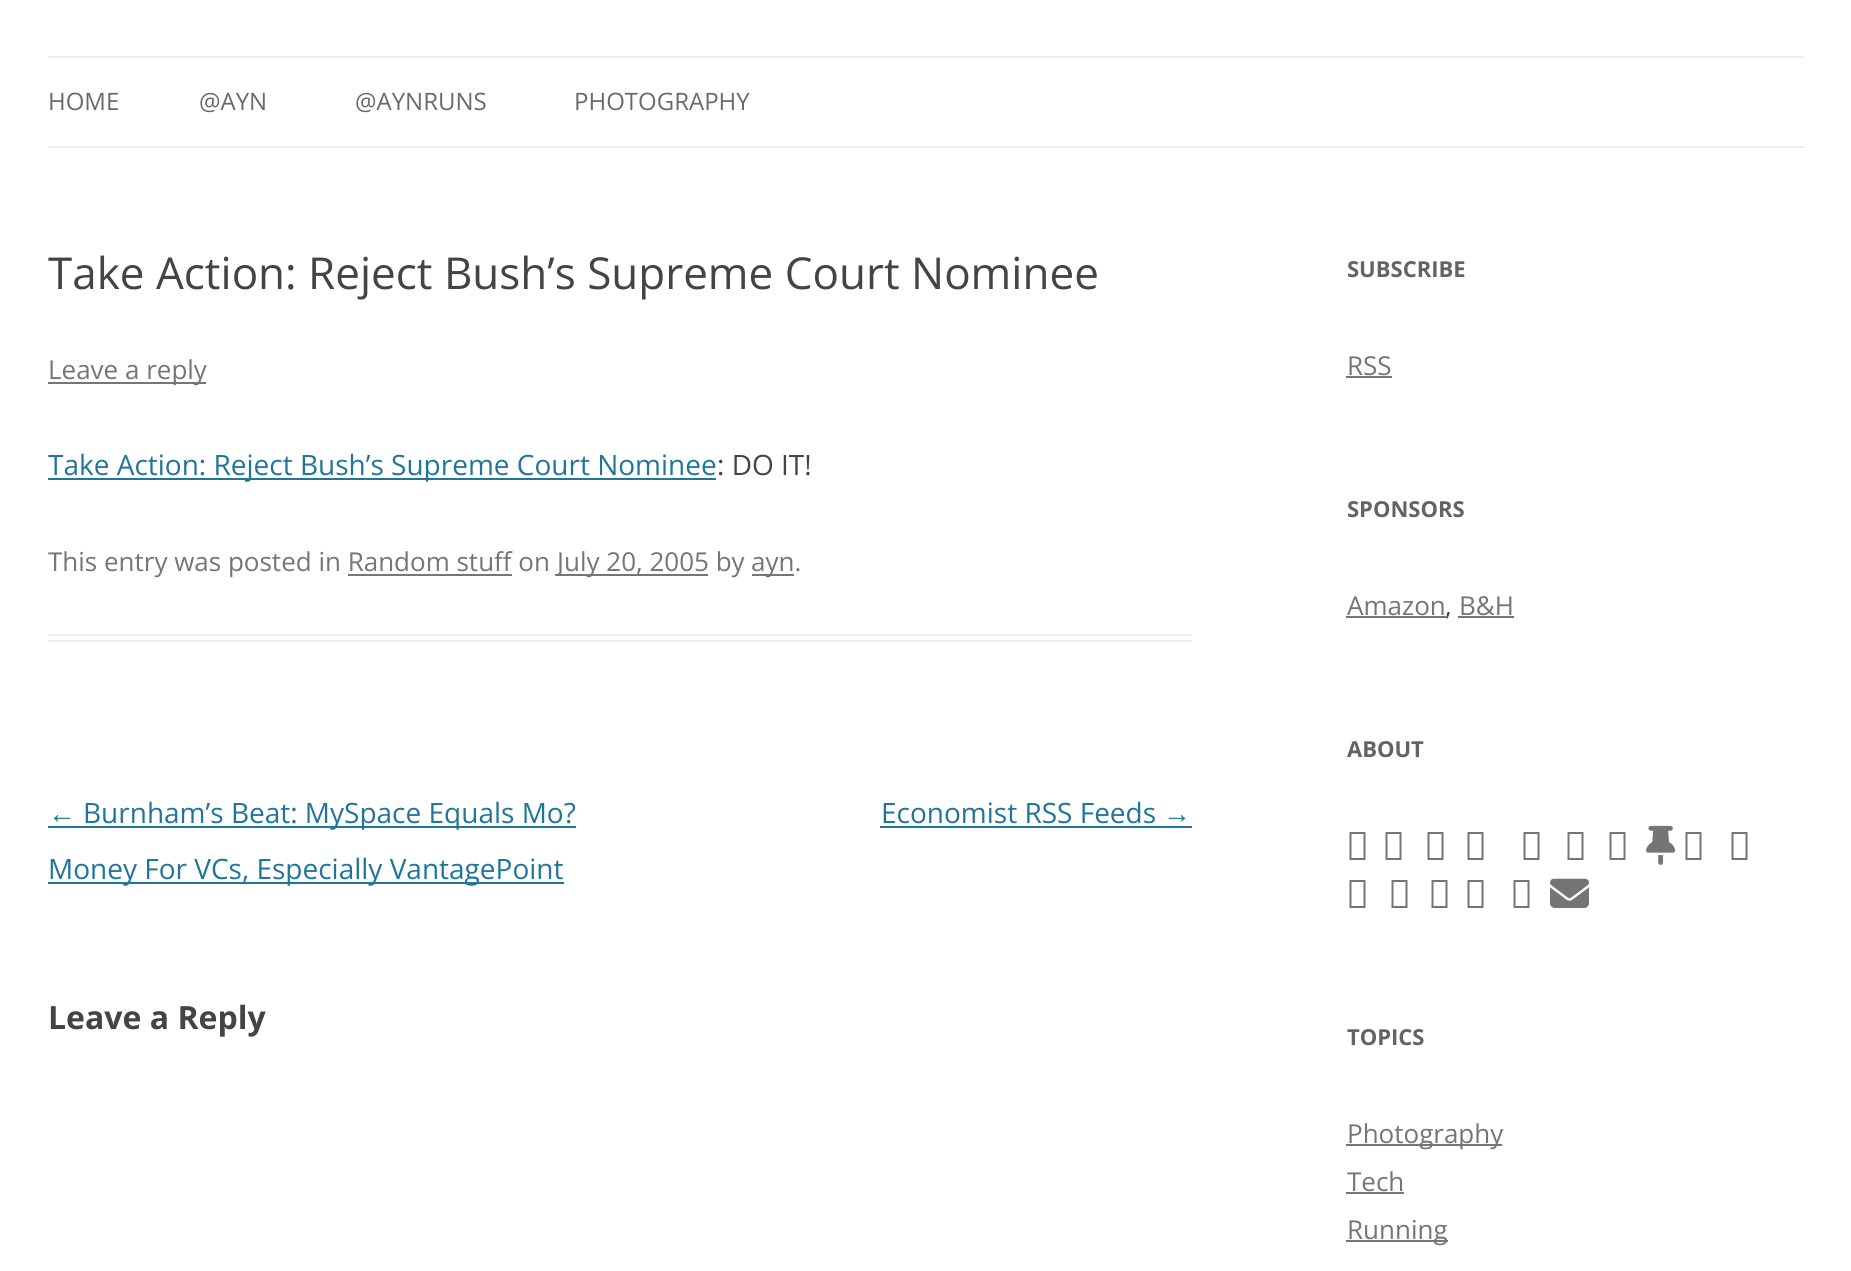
#include <cairo.h>
#include <math.h>
#include <stddef.h>


static void set_color(cairo_t *cr, unsigned color) {
    cairo_set_source_rgb(cr, (color >> 16) / 255.0, (color >> 8 & 255) / 255.0, (color & 255) / 255.0);
}

static void draw_text(cairo_t *cr, double x, double y, const char *s, const char *family, double size, int italic, int bold, unsigned color) {
    cairo_select_font_face(cr, family, italic ? CAIRO_FONT_SLANT_ITALIC : CAIRO_FONT_SLANT_NORMAL,
        bold ? CAIRO_FONT_WEIGHT_BOLD : CAIRO_FONT_WEIGHT_NORMAL);
    cairo_set_font_size(cr, size);
    set_color(cr, color);
    cairo_move_to(cr, x, y);
    cairo_show_text(cr, s);
}

static void fill_rect(cairo_t *cr, double x, double y, double w, double h, unsigned color) {
    set_color(cr, color);
    cairo_rectangle(cr, x, y, w, h);
    cairo_fill(cr);
}

static void draw_image(cairo_t *cr, const char *path, double x, double y, double w, double h) {
    cairo_surface_t *image = cairo_image_surface_create_from_png(path);
    cairo_save(cr);
    cairo_set_source_surface(cr, image, x, y);
    cairo_rectangle(cr, x, y, w, h);
    cairo_fill(cr);
    cairo_restore(cr);
    cairo_surface_destroy(image);
}

int main(void) {
    cairo_surface_t *surface = cairo_image_surface_create(CAIRO_FORMAT_RGB24, 1851, 1271);
    cairo_t *cr = cairo_create(surface);
    cairo_font_options_t *options = cairo_font_options_create();
    cairo_font_options_set_hint_metrics(options, CAIRO_HINT_METRICS_OFF);
    cairo_font_options_set_hint_style(options, CAIRO_HINT_STYLE_NONE);
    cairo_set_font_options(cr, options);
    cairo_set_miter_limit(cr, 4);
    set_color(cr, 0xFFFFFF);
    cairo_paint(cr);
    fill_rect(cr, 48, 56, 1756, 2, 0xEDEDED);
    fill_rect(cr, 48, 146, 1756, 2, 0xEDEDED);
    draw_text(cr, 48, 110, "HOME", "Open Sans", 24, 0, 0, 0x6A6A6A);
    draw_text(cr, 199, 110, "@AYN", "Open Sans", 24, 0, 0, 0x6A6A6A);
    draw_text(cr, 355, 110, "@AYNRUNS", "Open Sans", 24, 0, 0, 0x6A6A6A);
    draw_text(cr, 574, 110, "PHOTOGRAPHY", "Open Sans", 24, 0, 0, 0x6A6A6A);
    fill_rect(cr, 48, 634, 1144, 2, 0xEDEDED);
    fill_rect(cr, 48, 640, 1144, 2, 0xEDEDED);
    draw_text(cr, 48, 289, "Take Action: Reject Bush’s Supreme Court Nominee", "Open Sans", 44, 0, 0, 0x444444);
    fill_rect(cr, 48, 382, 158, 2, 0x757575);
    draw_text(cr, 48, 379, "Leave a reply", "Open Sans", 26, 0, 0, 0x757575);
    fill_rect(cr, 48, 478, 668, 2, 0x21759B);
    draw_text(cr, 48, 475, "Take Action: Reject Bush’s Supreme Court Nominee", "Open Sans", 28, 0, 0, 0x21759B);
    draw_text(cr, 717, 475, ": DO IT!", "Open Sans", 28, 0, 0, 0x444444);
    draw_text(cr, 48, 571, "This entry was posted in Random stuff on", "Open Sans", 26, 0, 0, 0x757575);
    fill_rect(cr, 556, 574, 152, 2, 0x757575);
    draw_text(cr, 557, 571, "July 20, 2005 by", "Open Sans", 26, 0, 0, 0x757575);
    fill_rect(cr, 752, 574, 42, 2, 0x757575);
    draw_text(cr, 751, 571, "ayn.", "Open Sans", 26, 0, 0, 0x757575);
    fill_rect(cr, 348, 574, 164, 2, 0x757575);
    draw_text(cr, 48, 823, "←", "Liberation Sans", 28, 0, 0, 0x21759B);
    fill_rect(cr, 48, 826, 528, 2, 0x21759B);
    draw_text(cr, 83, 823, "Burnham’s Beat: MySpace Equals Mo?", "Open Sans", 28, 0, 0, 0x21759B);
    fill_rect(cr, 48, 882, 516, 2, 0x21759B);
    draw_text(cr, 48, 879, "Money For VCs, Especially VantagePoint", "Open Sans", 28, 0, 0, 0x21759B);
    draw_text(cr, 881, 823, "Economist RSS Feeds", "Open Sans", 28, 0, 0, 0x21759B);
    draw_text(cr, 1163, 823, "→", "Liberation Sans", 28, 0, 0, 0x21759B);
    fill_rect(cr, 880, 826, 312, 2, 0x21759B);
    draw_text(cr, 48, 1029, "Leave a Reply", "Open Sans", 32, 0, 1, 0x444444);
    draw_text(cr, 1347, 277, "SUBSCRIBE", "Open Sans", 22, 0, 1, 0x636363);
    draw_text(cr, 1347, 375, "RSS", "Open Sans", 26, 0, 0, 0x757575);
    fill_rect(cr, 1346, 376, 46, 2, 0x757575);
    draw_text(cr, 1347, 517, "SPONSORS", "Open Sans", 22, 0, 1, 0x636363);
    draw_text(cr, 1347, 615, "Amazon", "Open Sans", 26, 0, 0, 0x757575);
    fill_rect(cr, 1346, 616, 100, 2, 0x757575);
    draw_text(cr, 1445, 615, ",", "Open Sans", 26, 0, 0, 0x444444);
    draw_text(cr, 1459, 615, "B&H", "Open Sans", 26, 0, 0, 0x757575);
    fill_rect(cr, 1458, 616, 56, 2, 0x757575);
    draw_text(cr, 1347, 757, "ABOUT", "Open Sans", 22, 0, 1, 0x636363);
    set_color(cr, 0x757575);
    cairo_new_path(cr);
    cairo_move_to(cr, 1349.5, 860);
    cairo_line_to(cr, 1349.5, 832);
    cairo_line_to(cr, 1365.5, 832);
    cairo_line_to(cr, 1365.5, 860);
    cairo_close_path(cr);
    cairo_move_to(cr, 1351.5, 858);
    cairo_line_to(cr, 1363.5, 858);
    cairo_line_to(cr, 1363.5, 834);
    cairo_line_to(cr, 1351.5, 834);
    cairo_close_path(cr);
    cairo_move_to(cr, 1385.5, 860);
    cairo_line_to(cr, 1385.5, 832);
    cairo_line_to(cr, 1401.5, 832);
    cairo_line_to(cr, 1401.5, 860);
    cairo_close_path(cr);
    cairo_move_to(cr, 1387.5, 858);
    cairo_line_to(cr, 1399.5, 858);
    cairo_line_to(cr, 1399.5, 834);
    cairo_line_to(cr, 1387.5, 834);
    cairo_close_path(cr);
    cairo_fill(cr);
    cairo_new_path(cr);
    cairo_move_to(cr, 1427.5, 860);
    cairo_line_to(cr, 1427.5, 832);
    cairo_line_to(cr, 1443.5, 832);
    cairo_line_to(cr, 1443.5, 860);
    cairo_close_path(cr);
    cairo_move_to(cr, 1429.5, 858);
    cairo_line_to(cr, 1441.5, 858);
    cairo_line_to(cr, 1441.5, 834);
    cairo_line_to(cr, 1429.5, 834);
    cairo_close_path(cr);
    cairo_move_to(cr, 1467.5, 860);
    cairo_line_to(cr, 1467.5, 832);
    cairo_line_to(cr, 1483.5, 832);
    cairo_line_to(cr, 1483.5, 860);
    cairo_close_path(cr);
    cairo_move_to(cr, 1469.5, 858);
    cairo_line_to(cr, 1481.5, 858);
    cairo_line_to(cr, 1481.5, 834);
    cairo_line_to(cr, 1469.5, 834);
    cairo_close_path(cr);
    cairo_fill(cr);
    cairo_new_path(cr);
    cairo_move_to(cr, 1523.5, 860);
    cairo_line_to(cr, 1523.5, 832);
    cairo_line_to(cr, 1539.5, 832);
    cairo_line_to(cr, 1539.5, 860);
    cairo_close_path(cr);
    cairo_move_to(cr, 1525.5, 858);
    cairo_line_to(cr, 1537.5, 858);
    cairo_line_to(cr, 1537.5, 834);
    cairo_line_to(cr, 1525.5, 834);
    cairo_close_path(cr);
    cairo_move_to(cr, 1567.5, 860);
    cairo_line_to(cr, 1567.5, 832);
    cairo_line_to(cr, 1583.5, 832);
    cairo_line_to(cr, 1583.5, 860);
    cairo_close_path(cr);
    cairo_move_to(cr, 1569.5, 858);
    cairo_line_to(cr, 1581.5, 858);
    cairo_line_to(cr, 1581.5, 834);
    cairo_line_to(cr, 1569.5, 834);
    cairo_close_path(cr);
    cairo_fill(cr);
    cairo_new_path(cr);
    cairo_move_to(cr, 1609.5, 860);
    cairo_line_to(cr, 1609.5, 832);
    cairo_line_to(cr, 1625.5, 832);
    cairo_line_to(cr, 1625.5, 860);
    cairo_close_path(cr);
    cairo_move_to(cr, 1611.5, 858);
    cairo_line_to(cr, 1623.5, 858);
    cairo_line_to(cr, 1623.5, 834);
    cairo_line_to(cr, 1611.5, 834);
    cairo_close_path(cr);
    cairo_fill(cr);
    draw_image(cr, "assets/img1.png", 1646, 825, 30, 40);
    cairo_new_path(cr);
    cairo_move_to(cr, 1685.5, 860);
    cairo_line_to(cr, 1685.5, 832);
    cairo_line_to(cr, 1701.5, 832);
    cairo_line_to(cr, 1701.5, 860);
    cairo_close_path(cr);
    cairo_move_to(cr, 1687.5, 858);
    cairo_line_to(cr, 1699.5, 858);
    cairo_line_to(cr, 1699.5, 834);
    cairo_line_to(cr, 1687.5, 834);
    cairo_close_path(cr);
    cairo_move_to(cr, 1731.5, 860);
    cairo_line_to(cr, 1731.5, 832);
    cairo_line_to(cr, 1747.5, 832);
    cairo_line_to(cr, 1747.5, 860);
    cairo_close_path(cr);
    cairo_move_to(cr, 1733.5, 858);
    cairo_line_to(cr, 1745.5, 858);
    cairo_line_to(cr, 1745.5, 834);
    cairo_line_to(cr, 1733.5, 834);
    cairo_close_path(cr);
    cairo_fill(cr);
    cairo_new_path(cr);
    cairo_move_to(cr, 1349.5, 908);
    cairo_line_to(cr, 1349.5, 880);
    cairo_line_to(cr, 1365.5, 880);
    cairo_line_to(cr, 1365.5, 908);
    cairo_close_path(cr);
    cairo_move_to(cr, 1351.5, 906);
    cairo_line_to(cr, 1363.5, 906);
    cairo_line_to(cr, 1363.5, 882);
    cairo_line_to(cr, 1351.5, 882);
    cairo_close_path(cr);
    cairo_move_to(cr, 1391.5, 908);
    cairo_line_to(cr, 1391.5, 880);
    cairo_line_to(cr, 1407.5, 880);
    cairo_line_to(cr, 1407.5, 908);
    cairo_close_path(cr);
    cairo_move_to(cr, 1393.5, 906);
    cairo_line_to(cr, 1405.5, 906);
    cairo_line_to(cr, 1405.5, 882);
    cairo_line_to(cr, 1393.5, 882);
    cairo_close_path(cr);
    cairo_fill(cr);
    cairo_new_path(cr);
    cairo_move_to(cr, 1431.5, 908);
    cairo_line_to(cr, 1431.5, 880);
    cairo_line_to(cr, 1447.5, 880);
    cairo_line_to(cr, 1447.5, 908);
    cairo_close_path(cr);
    cairo_move_to(cr, 1433.5, 906);
    cairo_line_to(cr, 1445.5, 906);
    cairo_line_to(cr, 1445.5, 882);
    cairo_line_to(cr, 1433.5, 882);
    cairo_close_path(cr);
    cairo_move_to(cr, 1467.5, 908);
    cairo_line_to(cr, 1467.5, 880);
    cairo_line_to(cr, 1483.5, 880);
    cairo_line_to(cr, 1483.5, 908);
    cairo_close_path(cr);
    cairo_move_to(cr, 1469.5, 906);
    cairo_line_to(cr, 1481.5, 906);
    cairo_line_to(cr, 1481.5, 882);
    cairo_line_to(cr, 1469.5, 882);
    cairo_close_path(cr);
    cairo_fill(cr);
    cairo_new_path(cr);
    cairo_move_to(cr, 1513.5, 908);
    cairo_line_to(cr, 1513.5, 880);
    cairo_line_to(cr, 1529.5, 880);
    cairo_line_to(cr, 1529.5, 908);
    cairo_close_path(cr);
    cairo_move_to(cr, 1515.5, 906);
    cairo_line_to(cr, 1527.5, 906);
    cairo_line_to(cr, 1527.5, 882);
    cairo_line_to(cr, 1515.5, 882);
    cairo_close_path(cr);
    cairo_fill(cr);
    draw_image(cr, "assets/img2.png", 1550, 878, 39, 30);
    draw_text(cr, 1347, 1045, "TOPICS", "Open Sans", 22, 0, 1, 0x636363);
    fill_rect(cr, 1346, 1144, 156, 2, 0x757575);
    draw_text(cr, 1347, 1143, "Photography", "Open Sans", 26, 0, 0, 0x757575);
    draw_text(cr, 1347, 1191, "Tech", "Open Sans", 26, 0, 0, 0x757575);
    fill_rect(cr, 1346, 1192, 58, 2, 0x757575);
    fill_rect(cr, 1346, 1240, 102, 2, 0x757575);
    draw_text(cr, 1347, 1239, "Running", "Open Sans", 26, 0, 0, 0x757575);
    cairo_surface_write_to_png(surface, "output.png");
    cairo_font_options_destroy(options);
    cairo_destroy(cr);
    cairo_surface_destroy(surface);
    return 0;
}
